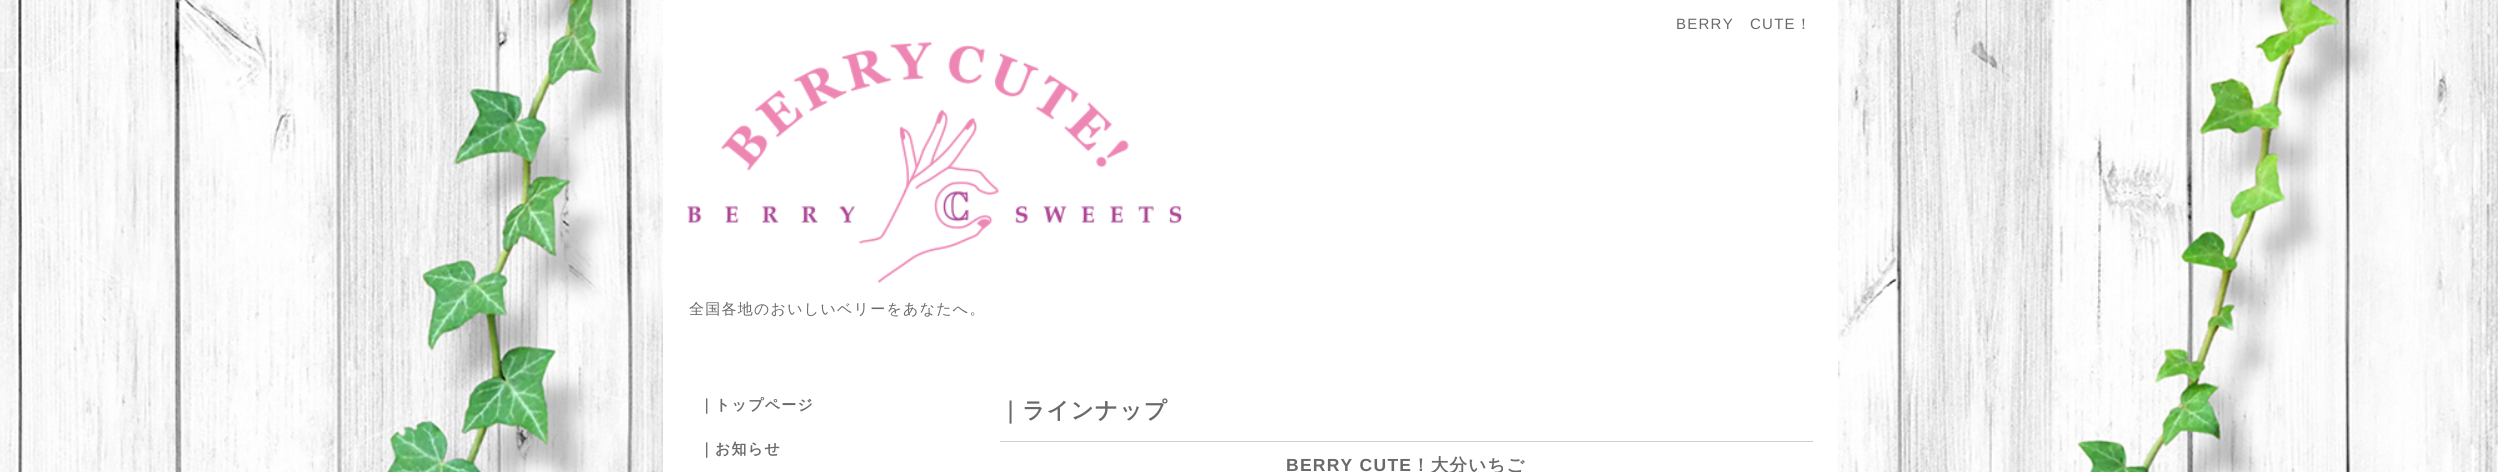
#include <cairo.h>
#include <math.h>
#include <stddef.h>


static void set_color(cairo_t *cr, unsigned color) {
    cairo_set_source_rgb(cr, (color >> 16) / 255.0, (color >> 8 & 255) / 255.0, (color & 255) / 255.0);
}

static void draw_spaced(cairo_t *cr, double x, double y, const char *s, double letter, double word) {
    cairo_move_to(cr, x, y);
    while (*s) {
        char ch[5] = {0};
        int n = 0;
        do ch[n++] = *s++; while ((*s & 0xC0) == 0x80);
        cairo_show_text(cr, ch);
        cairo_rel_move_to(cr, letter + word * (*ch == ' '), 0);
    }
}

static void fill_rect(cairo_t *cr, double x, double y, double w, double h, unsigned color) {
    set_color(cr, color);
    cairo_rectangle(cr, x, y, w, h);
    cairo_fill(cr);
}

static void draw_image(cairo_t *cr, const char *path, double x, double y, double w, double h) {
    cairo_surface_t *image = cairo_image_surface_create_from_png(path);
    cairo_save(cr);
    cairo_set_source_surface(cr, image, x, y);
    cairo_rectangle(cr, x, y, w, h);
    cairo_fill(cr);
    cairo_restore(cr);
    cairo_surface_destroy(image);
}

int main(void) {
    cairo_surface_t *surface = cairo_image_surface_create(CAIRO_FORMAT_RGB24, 2498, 472);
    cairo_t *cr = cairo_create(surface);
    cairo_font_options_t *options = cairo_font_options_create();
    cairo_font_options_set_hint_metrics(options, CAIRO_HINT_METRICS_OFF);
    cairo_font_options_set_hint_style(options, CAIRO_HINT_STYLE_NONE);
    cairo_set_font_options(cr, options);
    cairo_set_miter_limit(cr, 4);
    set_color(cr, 0xFFFFFF);
    cairo_paint(cr);
    draw_image(cr, "assets/img1.png", 0, 0, 2498, 472);
    fill_rect(cr, 663, 0, 1175, 472, 0xFFFFFF);
    cairo_select_font_face(cr, "Liberation Sans", CAIRO_FONT_SLANT_NORMAL, CAIRO_FONT_WEIGHT_NORMAL);
    cairo_set_font_size(cr, 15);
    set_color(cr, 0x6A6A6A);
    draw_spaced(cr, 1676, 29, "BERRY", 1.25, 0);
    draw_spaced(cr, 1750, 29, "CUTE", 1.25, 0);
    cairo_select_font_face(cr, "WenQuanYi Zen Hei Medium", CAIRO_FONT_SLANT_NORMAL, CAIRO_FONT_WEIGHT_NORMAL);
    draw_spaced(cr, 1796, 29, "！", 1.25, 0);
    draw_image(cr, "assets/img2.png", 687, 42, 495, 241);
    draw_spaced(cr, 689, 314, "全国各地のおいしいベリーをあなたへ。", 1.25, 0);
    cairo_select_font_face(cr, "WenQuanYi Zen Hei", CAIRO_FONT_SLANT_NORMAL, CAIRO_FONT_WEIGHT_BOLD);
    draw_spaced(cr, 699, 410, "｜トップページ", 1.25, 0);
    draw_spaced(cr, 699, 454, "｜お知らせ", 1.25, 0);
    cairo_set_font_size(cr, 22.5);
    draw_spaced(cr, 999, 418, "｜ラインナップ", 1.25, 0);
    fill_rect(cr, 1000, 441, 813, 1, 0xD0D0D0);
    cairo_select_font_face(cr, "Liberation Sans", CAIRO_FONT_SLANT_NORMAL, CAIRO_FONT_WEIGHT_BOLD);
    cairo_set_font_size(cr, 17.5);
    set_color(cr, 0x6A6A6A);
    draw_spaced(cr, 1286, 471, "BERRY CUTE", 1.25, 0);
    cairo_select_font_face(cr, "WenQuanYi Zen Hei", CAIRO_FONT_SLANT_NORMAL, CAIRO_FONT_WEIGHT_BOLD);
    draw_spaced(cr, 1412, 471, "！大分いちご", 1.25, 0);
    cairo_surface_write_to_png(surface, "output.png");
    cairo_font_options_destroy(options);
    cairo_destroy(cr);
    cairo_surface_destroy(surface);
    return 0;
}
